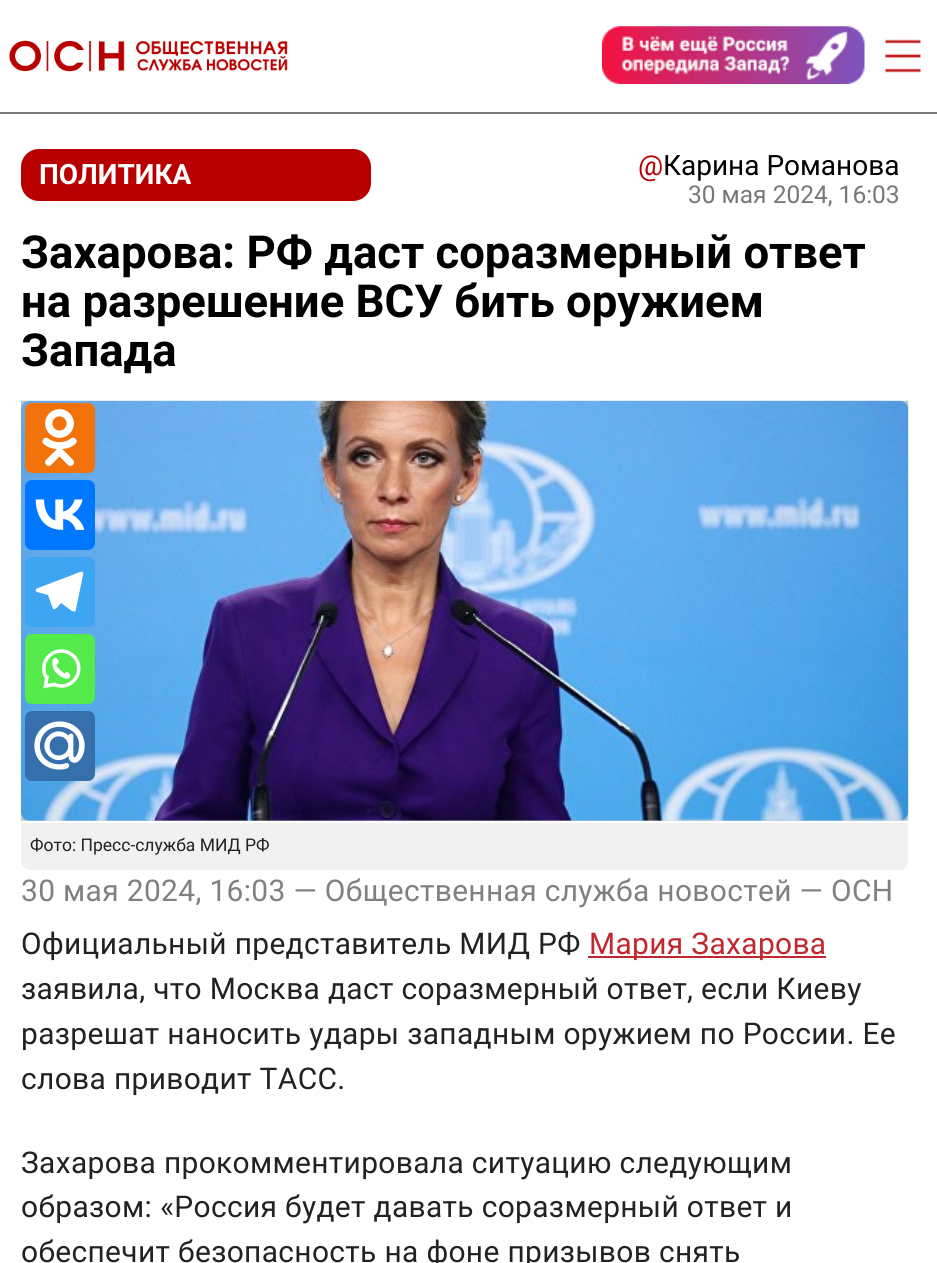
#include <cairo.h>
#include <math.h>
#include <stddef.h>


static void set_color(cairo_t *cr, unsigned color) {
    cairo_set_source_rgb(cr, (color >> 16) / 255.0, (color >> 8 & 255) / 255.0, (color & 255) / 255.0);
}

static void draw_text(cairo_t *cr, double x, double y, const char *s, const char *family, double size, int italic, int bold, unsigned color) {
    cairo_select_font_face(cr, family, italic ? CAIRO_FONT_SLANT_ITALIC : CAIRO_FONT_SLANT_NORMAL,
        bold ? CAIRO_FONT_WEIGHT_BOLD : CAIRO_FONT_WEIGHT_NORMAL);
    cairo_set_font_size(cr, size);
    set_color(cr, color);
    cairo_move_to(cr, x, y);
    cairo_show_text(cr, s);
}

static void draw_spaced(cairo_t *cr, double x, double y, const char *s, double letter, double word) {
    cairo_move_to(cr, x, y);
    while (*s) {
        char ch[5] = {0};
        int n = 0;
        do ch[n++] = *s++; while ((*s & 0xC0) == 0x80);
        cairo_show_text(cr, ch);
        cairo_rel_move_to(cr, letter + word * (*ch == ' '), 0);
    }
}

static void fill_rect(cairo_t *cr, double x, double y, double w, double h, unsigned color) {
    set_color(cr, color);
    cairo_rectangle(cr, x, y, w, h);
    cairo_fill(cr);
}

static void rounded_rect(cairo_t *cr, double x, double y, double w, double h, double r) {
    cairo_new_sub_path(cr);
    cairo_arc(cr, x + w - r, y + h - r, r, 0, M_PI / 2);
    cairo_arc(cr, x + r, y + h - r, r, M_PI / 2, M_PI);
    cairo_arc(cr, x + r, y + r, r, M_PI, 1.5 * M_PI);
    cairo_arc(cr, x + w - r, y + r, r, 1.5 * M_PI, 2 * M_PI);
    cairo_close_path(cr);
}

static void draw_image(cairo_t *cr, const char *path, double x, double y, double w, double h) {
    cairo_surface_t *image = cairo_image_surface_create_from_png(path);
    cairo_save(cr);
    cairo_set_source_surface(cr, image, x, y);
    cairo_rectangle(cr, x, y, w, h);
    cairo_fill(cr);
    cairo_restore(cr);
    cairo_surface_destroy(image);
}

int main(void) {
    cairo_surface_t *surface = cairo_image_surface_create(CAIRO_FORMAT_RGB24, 937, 1263);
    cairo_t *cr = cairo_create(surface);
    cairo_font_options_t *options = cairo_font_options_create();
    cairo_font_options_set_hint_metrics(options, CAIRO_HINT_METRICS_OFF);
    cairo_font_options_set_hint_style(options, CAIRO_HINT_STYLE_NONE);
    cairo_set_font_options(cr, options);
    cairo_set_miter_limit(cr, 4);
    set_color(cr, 0xFFFFFF);
    cairo_paint(cr);
    fill_rect(cr, 0, 112, 937, 2, 0x777777);
    draw_image(cr, "assets/img1.png", 9, 40, 279, 32);
    draw_image(cr, "assets/img2.png", 602, 26, 263, 58);
    draw_image(cr, "assets/img3.png", 885, 39, 36, 34);
    set_color(cr, 0xB90000);
    rounded_rect(cr, 21, 149, 350, 52, 18);
    cairo_fill(cr);
    draw_text(cr, 39, 184, "ПОЛИТИКА", "Roboto", 28, 0, 1, 0xFFFFFF);
    draw_text(cr, 638, 175, "@", "Roboto", 28, 0, 0, 0xB90000);
    draw_text(cr, 663, 175, "Карина Романова", "Roboto", 28, 0, 0, 0x000000);
    draw_text(cr, 688, 203, "30 мая 2024, 16:03", "Roboto", 24.5, 0, 0, 0x777777);
    draw_text(cr, 21, 268, "Захарова: РФ даст соразмерный ответ", "Roboto", 45.5, 0, 1, 0x000000);
    draw_text(cr, 21, 317, "на разрешение ВСУ бить оружием", "Roboto", 45.5, 0, 1, 0x000000);
    draw_text(cr, 21, 366, "Запада", "Roboto", 45.5, 0, 1, 0x000000);
    draw_image(cr, "assets/img4.png", 21, 400, 888, 421);
    draw_image(cr, "assets/img9.png", 21, 400, 888, 421);
    set_color(cr, 0xF2720C);
    rounded_rect(cr, 25, 403, 70, 70, 7);
    cairo_fill(cr);
    draw_image(cr, "assets/img5.png", 42, 409, 35, 57);
    set_color(cr, 0x0077FF);
    rounded_rect(cr, 25, 480, 70, 70, 7);
    cairo_fill(cr);
    draw_image(cr, "assets/img6.png", 35, 499, 50, 31);
    set_color(cr, 0x3DA5F1);
    rounded_rect(cr, 25, 557, 70, 70, 7);
    cairo_fill(cr);
    set_color(cr, 0xFFFFFF);
    cairo_new_path(cr);
    cairo_move_to(cr, 80, 572);
    cairo_line_to(cr, 38, 588);
    cairo_curve_to(cr, 35, 589, 35, 591, 37, 592);
    cairo_line_to(cr, 48, 595);
    cairo_line_to(cr, 53, 609);
    cairo_curve_to(cr, 55, 611, 60, 604, 61, 603);
    cairo_line_to(cr, 72, 611);
    cairo_curve_to(cr, 74, 612, 76, 612, 76, 609);
    cairo_line_to(cr, 83, 575);
    cairo_curve_to(cr, 84, 572, 82, 571, 80, 572);
    cairo_close_path(cr);
    cairo_fill(cr);
    set_color(cr, 0x55EB4C);
    rounded_rect(cr, 25, 634, 70, 70, 7);
    cairo_fill(cr);
    draw_image(cr, "assets/img7.png", 42, 649, 39, 40);
    set_color(cr, 0x356FAC);
    rounded_rect(cr, 25, 711, 70, 70, 7);
    cairo_fill(cr);
    draw_image(cr, "assets/img8.png", 34, 721, 51, 49);
    set_color(cr, 0xF1F1F1);
    cairo_new_path(cr);
    cairo_move_to(cr, 21, 823);
    cairo_line_to(cr, 908, 823);
    cairo_line_to(cr, 908, 861);
    cairo_curve_to(cr, 908, 866, 904, 870, 899, 870);
    cairo_line_to(cr, 30, 870);
    cairo_curve_to(cr, 25, 870, 21, 866, 21, 861);
    cairo_close_path(cr);
    cairo_fill(cr);
    draw_text(cr, 30, 851, "Фото: Пресс-служба МИД РФ", "Roboto", 17.5, 0, 0, 0x222222);
    cairo_set_font_size(cr, 29.9);
    set_color(cr, 0x808080);
    draw_spaced(cr, 21, 901, "30 мая 2024, 16:03 — Общественная служба новостей — ОСН", 0.35, 0);
    set_color(cr, 0x222222);
    draw_spaced(cr, 21, 954, "Официальный представитель МИД РФ", 0.35, 0);
    fill_rect(cr, 588, 956, 238, 2, 0xC1272D);
    draw_spaced(cr, 589, 954, "Мария Захарова", 0.35, 0);
    set_color(cr, 0x222222);
    draw_spaced(cr, 21, 999, "заявила, что Москва даст соразмерный ответ, если Киеву", 0.35, 0);
    draw_spaced(cr, 21, 1044, "разрешат наносить удары западным оружием по России. Ее", 0.35, 0);
    draw_spaced(cr, 21, 1089, "слова приводит ТАСС.", 0.35, 0);
    draw_spaced(cr, 21, 1173, "Захарова прокомментировала ситуацию следующим", 0.35, 0);
    draw_spaced(cr, 21, 1217, "образом: «Россия будет давать соразмерный ответ и", 0.35, 0);
    draw_spaced(cr, 21, 1262, "обеспечит безопасность на фоне призывов снять", 0.35, 0);
    cairo_surface_write_to_png(surface, "output.png");
    cairo_font_options_destroy(options);
    cairo_destroy(cr);
    cairo_surface_destroy(surface);
    return 0;
}
